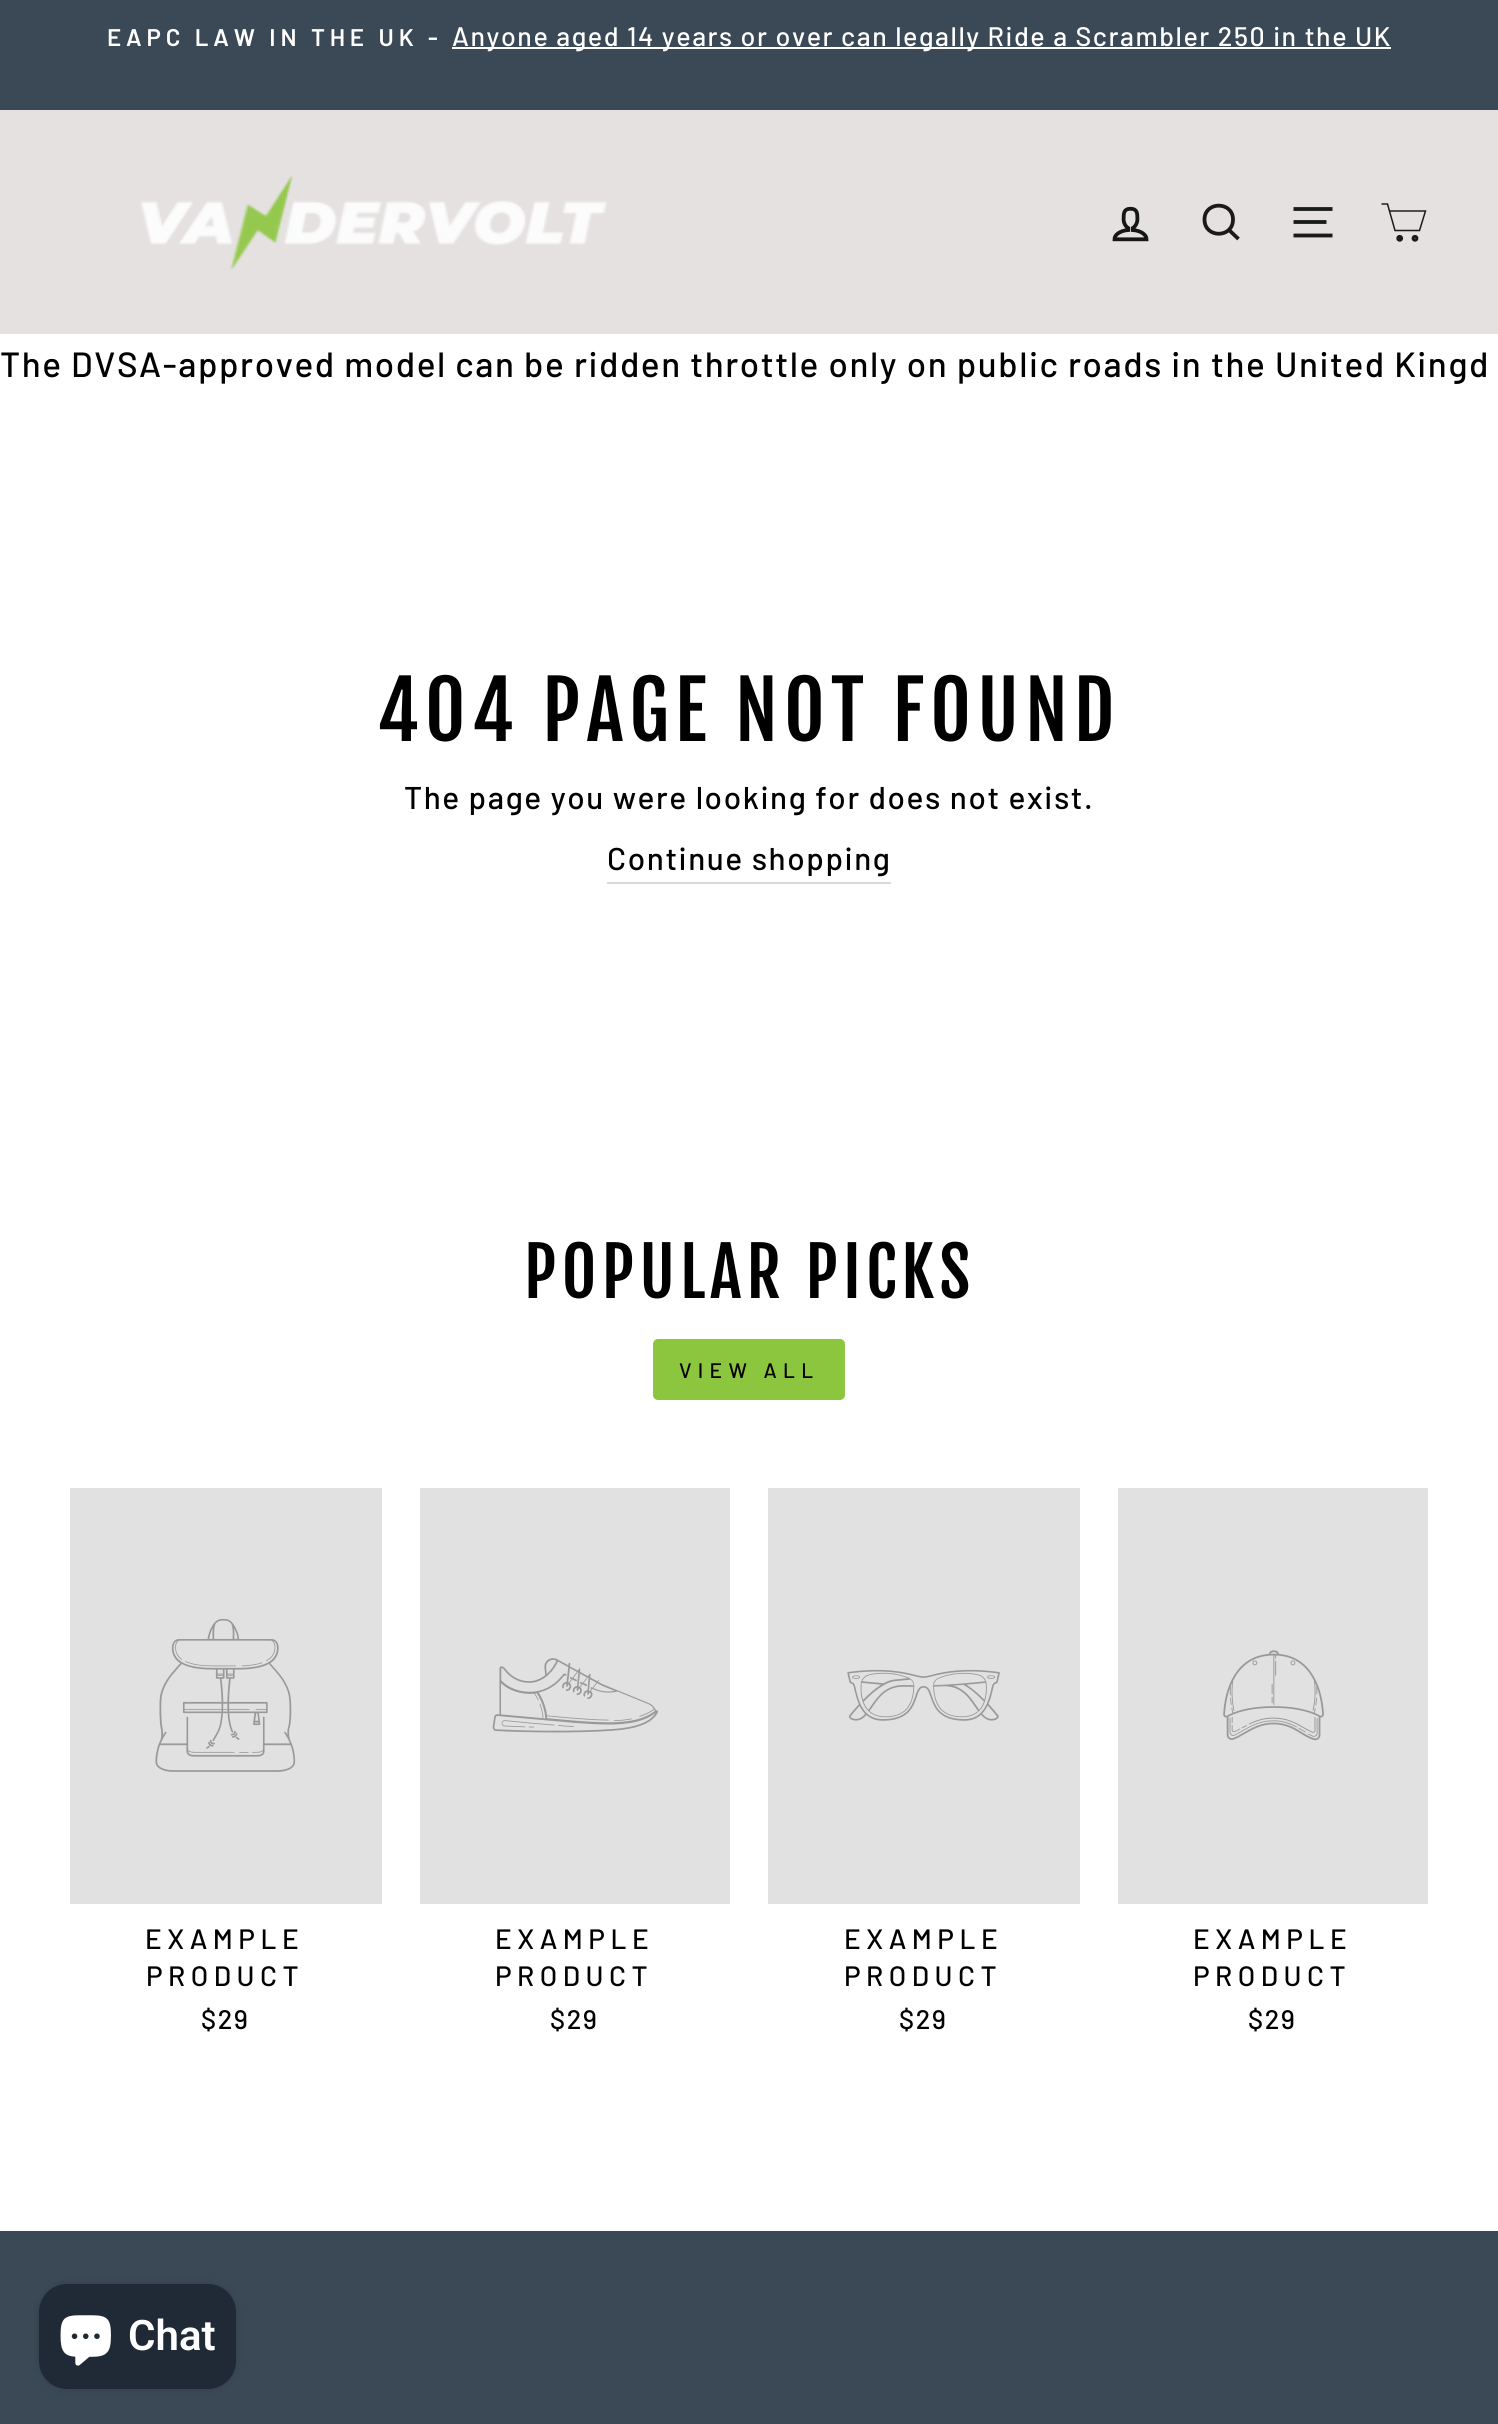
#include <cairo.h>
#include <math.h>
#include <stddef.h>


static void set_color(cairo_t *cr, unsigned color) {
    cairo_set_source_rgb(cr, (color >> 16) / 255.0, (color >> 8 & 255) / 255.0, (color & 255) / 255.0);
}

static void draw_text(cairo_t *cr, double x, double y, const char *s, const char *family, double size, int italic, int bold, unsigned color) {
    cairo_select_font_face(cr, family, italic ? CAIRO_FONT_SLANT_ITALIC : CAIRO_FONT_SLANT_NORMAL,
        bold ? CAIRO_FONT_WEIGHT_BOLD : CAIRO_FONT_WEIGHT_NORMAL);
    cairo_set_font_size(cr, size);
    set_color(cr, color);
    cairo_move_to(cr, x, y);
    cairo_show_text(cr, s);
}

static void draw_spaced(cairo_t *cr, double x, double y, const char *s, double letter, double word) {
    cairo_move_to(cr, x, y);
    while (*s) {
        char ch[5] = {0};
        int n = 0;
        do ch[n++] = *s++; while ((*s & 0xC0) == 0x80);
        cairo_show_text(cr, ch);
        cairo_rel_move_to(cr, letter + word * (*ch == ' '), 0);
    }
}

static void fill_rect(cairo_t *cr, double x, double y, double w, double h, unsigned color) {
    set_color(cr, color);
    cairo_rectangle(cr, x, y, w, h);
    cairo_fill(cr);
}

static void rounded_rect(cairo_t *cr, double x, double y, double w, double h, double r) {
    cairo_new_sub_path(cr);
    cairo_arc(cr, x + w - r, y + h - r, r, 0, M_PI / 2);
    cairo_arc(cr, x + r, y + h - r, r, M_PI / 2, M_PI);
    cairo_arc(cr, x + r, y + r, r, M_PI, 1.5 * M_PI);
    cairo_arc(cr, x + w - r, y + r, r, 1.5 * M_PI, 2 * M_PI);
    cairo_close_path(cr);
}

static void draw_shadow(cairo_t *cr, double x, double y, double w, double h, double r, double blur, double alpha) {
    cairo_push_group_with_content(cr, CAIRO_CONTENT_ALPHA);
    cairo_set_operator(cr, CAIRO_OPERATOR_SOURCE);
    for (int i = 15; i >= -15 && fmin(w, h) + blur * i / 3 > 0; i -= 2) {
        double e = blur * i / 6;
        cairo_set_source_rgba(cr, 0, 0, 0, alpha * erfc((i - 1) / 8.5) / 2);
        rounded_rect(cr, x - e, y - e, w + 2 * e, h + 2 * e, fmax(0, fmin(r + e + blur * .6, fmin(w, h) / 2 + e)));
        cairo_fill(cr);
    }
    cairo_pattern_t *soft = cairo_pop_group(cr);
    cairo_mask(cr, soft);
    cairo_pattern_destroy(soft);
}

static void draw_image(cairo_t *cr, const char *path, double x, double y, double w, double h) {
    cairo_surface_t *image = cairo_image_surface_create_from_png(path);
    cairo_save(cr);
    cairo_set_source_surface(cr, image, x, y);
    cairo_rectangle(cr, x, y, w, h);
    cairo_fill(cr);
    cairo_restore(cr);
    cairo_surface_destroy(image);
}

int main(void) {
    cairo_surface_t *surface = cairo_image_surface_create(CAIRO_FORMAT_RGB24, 1498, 2424);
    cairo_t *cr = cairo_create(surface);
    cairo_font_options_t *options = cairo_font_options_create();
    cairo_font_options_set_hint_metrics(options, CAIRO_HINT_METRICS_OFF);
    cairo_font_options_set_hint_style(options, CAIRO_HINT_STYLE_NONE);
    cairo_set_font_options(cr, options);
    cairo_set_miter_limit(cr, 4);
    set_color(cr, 0xFFFFFF);
    cairo_paint(cr);
    fill_rect(cr, 0, 0, 1498, 110, 0x3B4956);
    cairo_select_font_face(cr, "Barlow SemiBold", CAIRO_FONT_SLANT_NORMAL, CAIRO_FONT_WEIGHT_NORMAL);
    cairo_set_font_size(cr, 24.1);
    set_color(cr, 0xFFFFFF);
    draw_spaced(cr, 107, 46, "EAPC LAW IN THE UK -", 4.8, 0);
    fill_rect(cr, 452, 47, 939, 2, 0xFFFFFF);
    cairo_select_font_face(cr, "Barlow Medium", CAIRO_FONT_SLANT_NORMAL, CAIRO_FONT_WEIGHT_NORMAL);
    cairo_set_font_size(cr, 26.8);
    draw_spaced(cr, 452, 46, "Anyone aged 14 years or over can legally Ride a Scrambler 250 in the UK", 1.57, 0);
    fill_rect(cr, 0, 110, 1498, 224, 0xE5E1E1);
    draw_image(cr, "assets/img1.png", 140, 176, 467, 94);
    draw_image(cr, "assets/img2.png", 1112, 206, 37, 36);
    cairo_new_path(cr);
    cairo_move_to(cr, 1233, 219.5);
    cairo_curve_to(cr, 1233, 238.5, 1204.5, 238.5, 1204.5, 219.5);
    cairo_curve_to(cr, 1204.5, 201, 1233, 201, 1233, 219.5);
    cairo_close_path(cr);
    cairo_move_to(cr, 1238.5, 239);
    cairo_line_to(cr, 1229, 230);
    set_color(cr, 0x1A1A1A);
    cairo_set_line_width(cr, 3.8);
    cairo_stroke(cr);
    cairo_new_path(cr);
    cairo_move_to(cr, 1293.5, 209);
    cairo_line_to(cr, 1332.5, 209);
    cairo_move_to(cr, 1293.5, 222);
    cairo_line_to(cr, 1326.5, 222);
    cairo_move_to(cr, 1293.5, 235.5);
    cairo_line_to(cr, 1332.5, 235.5);
    cairo_stroke(cr);
    cairo_new_path(cr);
    cairo_move_to(cr, 1389.5, 211);
    cairo_line_to(cr, 1425.5, 211);
    cairo_line_to(cr, 1419.5, 230.5);
    cairo_line_to(cr, 1395, 230.5);
    cairo_line_to(cr, 1387.5, 204);
    cairo_line_to(cr, 1381.5, 204);
    cairo_set_line_width(cr, 1.5);
    cairo_stroke(cr);
    cairo_arc(cr, 1399.7, 238.3, 1.5, 0, 2 * M_PI);
    cairo_fill_preserve(cr);
    cairo_set_line_width(cr, 3.8);
    cairo_stroke(cr);
    cairo_arc(cr, 1415, 238.3, 1.5, 0, 2 * M_PI);
    cairo_stroke(cr);
    cairo_set_font_size(cr, 35);
    set_color(cr, 0x000000);
    draw_spaced(cr, 0, 377, "The DVSA-approved model can be ridden throttle only on public roads in the United Kingd", 1.57, 0);
    cairo_select_font_face(cr, "Fjalla One", CAIRO_FONT_SLANT_NORMAL, CAIRO_FONT_WEIGHT_NORMAL);
    cairo_set_font_size(cr, 78.75);
    draw_spaced(cr, 377, 741, "404 PAGE NOT FOUND", 5.9, 0);
    cairo_select_font_face(cr, "Barlow Medium", CAIRO_FONT_SLANT_NORMAL, CAIRO_FONT_WEIGHT_NORMAL);
    cairo_set_font_size(cr, 31.5);
    draw_spaced(cr, 404, 809, "The page you were looking for does not exist.", 1.57, 0);
    fill_rect(cr, 607, 882, 284, 2, 0xD9D9D9);
    set_color(cr, 0x000000);
    draw_spaced(cr, 607, 870, "Continue shopping", 1.57, 0);
    cairo_select_font_face(cr, "Fjalla One", CAIRO_FONT_SLANT_NORMAL, CAIRO_FONT_WEIGHT_NORMAL);
    cairo_set_font_size(cr, 67);
    draw_spaced(cr, 524, 1298, "POPULAR PICKS", 5, 0);
    set_color(cr, 0x8CC63F);
    rounded_rect(cr, 654, 1340, 190, 59, 4);
    cairo_fill_preserve(cr);
    cairo_set_line_width(cr, 2);
    cairo_stroke(cr);
    cairo_select_font_face(cr, "Barlow Medium", CAIRO_FONT_SLANT_NORMAL, CAIRO_FONT_WEIGHT_NORMAL);
    cairo_set_font_size(cr, 21);
    set_color(cr, 0x000000);
    draw_spaced(cr, 679, 1378, "VIEW ALL", 6.25, 0);
    fill_rect(cr, 70, 1488, 312, 416, 0xE1E1E1);
    draw_image(cr, "assets/img3.png", 155, 1618, 141, 154);
    cairo_set_font_size(cr, 28);
    set_color(cr, 0x000000);
    draw_spaced(cr, 145, 1949, "EXAMPLE", 5.5, 0);
    draw_spaced(cr, 146, 1986, "PRODUCT", 5.5, 0);
    cairo_set_font_size(cr, 26.8);
    draw_spaced(cr, 201, 2029, "$29", 1.57, 0);
    fill_rect(cr, 420, 1488, 310, 416, 0xE1E1E1);
    draw_image(cr, "assets/img4.png", 492, 1658, 166, 75);
    cairo_set_font_size(cr, 28);
    set_color(cr, 0x000000);
    draw_spaced(cr, 495, 1949, "EXAMPLE", 5.5, 0);
    draw_spaced(cr, 495, 1986, "PRODUCT", 5.5, 0);
    cairo_set_font_size(cr, 26.8);
    draw_spaced(cr, 550, 2029, "$29", 1.57, 0);
    fill_rect(cr, 768, 1488, 312, 416, 0xE1E1E1);
    draw_image(cr, "assets/img5.png", 847, 1669, 153, 52);
    cairo_set_font_size(cr, 28);
    set_color(cr, 0x000000);
    draw_spaced(cr, 844, 1949, "EXAMPLE", 5.5, 0);
    draw_spaced(cr, 844, 1986, "PRODUCT", 5.5, 0);
    cairo_set_font_size(cr, 26.8);
    draw_spaced(cr, 899, 2029, "$29", 1.57, 0);
    fill_rect(cr, 1118, 1488, 310, 416, 0xE1E1E1);
    draw_image(cr, "assets/img6.png", 1223, 1650, 101, 91);
    cairo_set_font_size(cr, 28);
    set_color(cr, 0x000000);
    draw_spaced(cr, 1193, 1949, "EXAMPLE", 5.5, 0);
    draw_spaced(cr, 1193, 1986, "PRODUCT", 5.5, 0);
    cairo_set_font_size(cr, 26.8);
    draw_spaced(cr, 1248, 2029, "$29", 1.57, 0);
    fill_rect(cr, 0, 2231, 1498, 193, 0x3B4956);
    set_color(cr, 0x000000);
    draw_shadow(cr, 39, 2284, 197, 105, 28, 4.5, 0.15);
    set_color(cr, 0x202A36);
    rounded_rect(cr, 39, 2284, 197, 105, 28);
    cairo_fill(cr);
    draw_image(cr, "assets/img7.png", 60, 2315, 51, 51);
    draw_text(cr, 128, 2350, "Chat", "Roboto SemiBold", 42, 0, 0, 0xFFFFFF);
    cairo_surface_write_to_png(surface, "output.png");
    cairo_font_options_destroy(options);
    cairo_destroy(cr);
    cairo_surface_destroy(surface);
    return 0;
}
